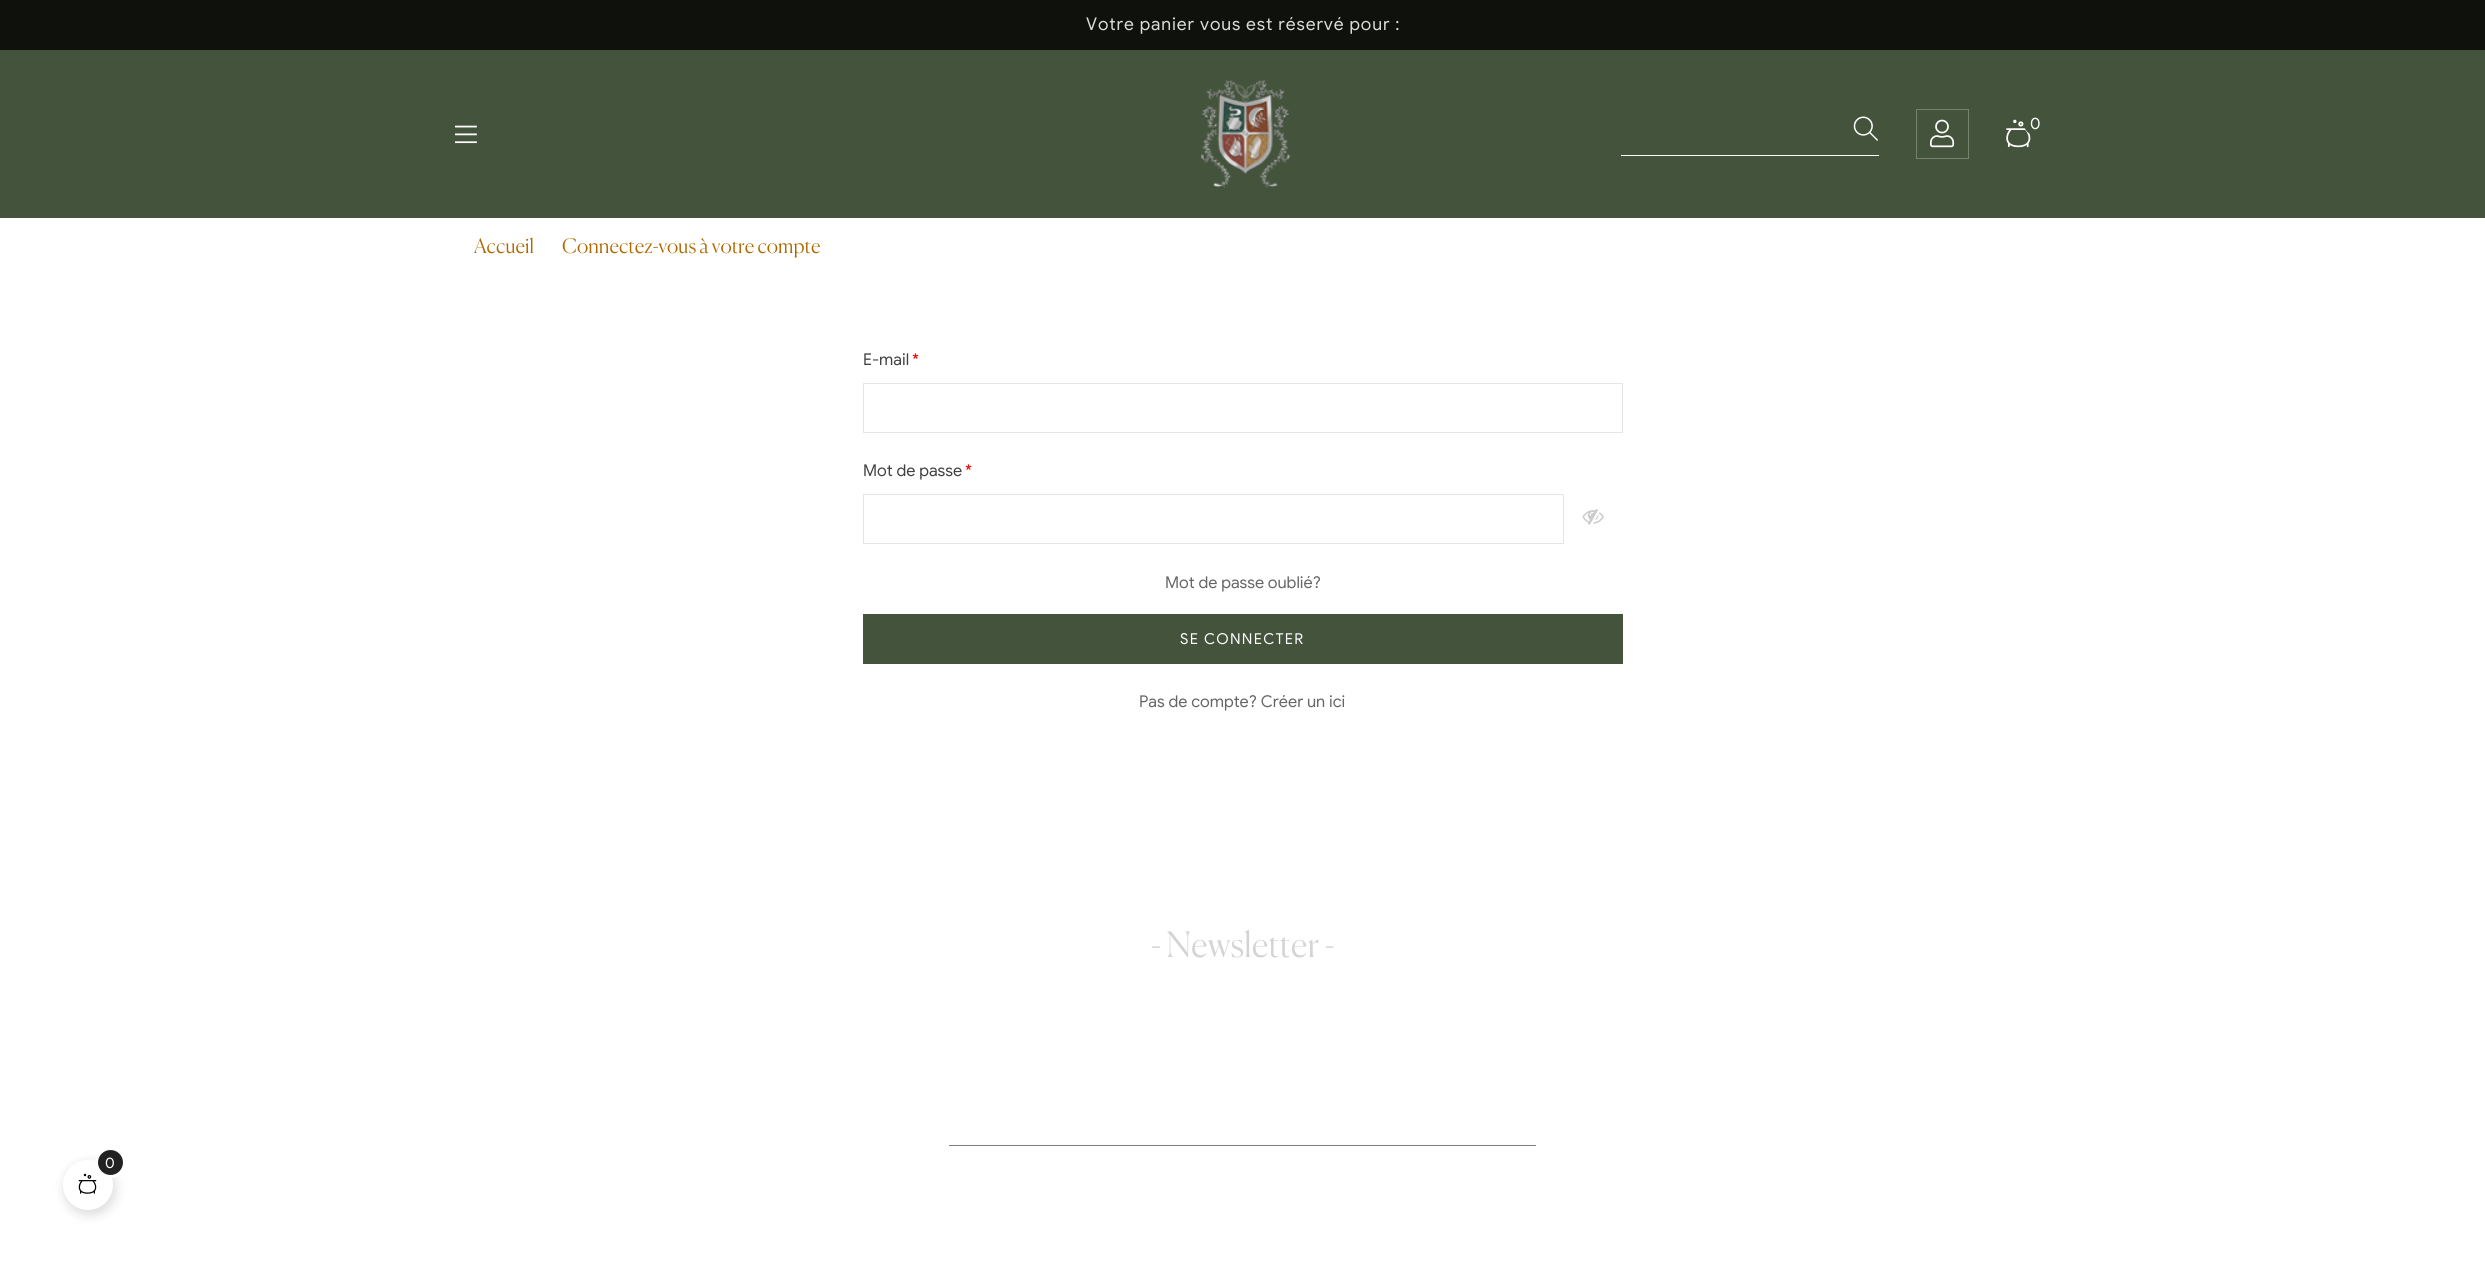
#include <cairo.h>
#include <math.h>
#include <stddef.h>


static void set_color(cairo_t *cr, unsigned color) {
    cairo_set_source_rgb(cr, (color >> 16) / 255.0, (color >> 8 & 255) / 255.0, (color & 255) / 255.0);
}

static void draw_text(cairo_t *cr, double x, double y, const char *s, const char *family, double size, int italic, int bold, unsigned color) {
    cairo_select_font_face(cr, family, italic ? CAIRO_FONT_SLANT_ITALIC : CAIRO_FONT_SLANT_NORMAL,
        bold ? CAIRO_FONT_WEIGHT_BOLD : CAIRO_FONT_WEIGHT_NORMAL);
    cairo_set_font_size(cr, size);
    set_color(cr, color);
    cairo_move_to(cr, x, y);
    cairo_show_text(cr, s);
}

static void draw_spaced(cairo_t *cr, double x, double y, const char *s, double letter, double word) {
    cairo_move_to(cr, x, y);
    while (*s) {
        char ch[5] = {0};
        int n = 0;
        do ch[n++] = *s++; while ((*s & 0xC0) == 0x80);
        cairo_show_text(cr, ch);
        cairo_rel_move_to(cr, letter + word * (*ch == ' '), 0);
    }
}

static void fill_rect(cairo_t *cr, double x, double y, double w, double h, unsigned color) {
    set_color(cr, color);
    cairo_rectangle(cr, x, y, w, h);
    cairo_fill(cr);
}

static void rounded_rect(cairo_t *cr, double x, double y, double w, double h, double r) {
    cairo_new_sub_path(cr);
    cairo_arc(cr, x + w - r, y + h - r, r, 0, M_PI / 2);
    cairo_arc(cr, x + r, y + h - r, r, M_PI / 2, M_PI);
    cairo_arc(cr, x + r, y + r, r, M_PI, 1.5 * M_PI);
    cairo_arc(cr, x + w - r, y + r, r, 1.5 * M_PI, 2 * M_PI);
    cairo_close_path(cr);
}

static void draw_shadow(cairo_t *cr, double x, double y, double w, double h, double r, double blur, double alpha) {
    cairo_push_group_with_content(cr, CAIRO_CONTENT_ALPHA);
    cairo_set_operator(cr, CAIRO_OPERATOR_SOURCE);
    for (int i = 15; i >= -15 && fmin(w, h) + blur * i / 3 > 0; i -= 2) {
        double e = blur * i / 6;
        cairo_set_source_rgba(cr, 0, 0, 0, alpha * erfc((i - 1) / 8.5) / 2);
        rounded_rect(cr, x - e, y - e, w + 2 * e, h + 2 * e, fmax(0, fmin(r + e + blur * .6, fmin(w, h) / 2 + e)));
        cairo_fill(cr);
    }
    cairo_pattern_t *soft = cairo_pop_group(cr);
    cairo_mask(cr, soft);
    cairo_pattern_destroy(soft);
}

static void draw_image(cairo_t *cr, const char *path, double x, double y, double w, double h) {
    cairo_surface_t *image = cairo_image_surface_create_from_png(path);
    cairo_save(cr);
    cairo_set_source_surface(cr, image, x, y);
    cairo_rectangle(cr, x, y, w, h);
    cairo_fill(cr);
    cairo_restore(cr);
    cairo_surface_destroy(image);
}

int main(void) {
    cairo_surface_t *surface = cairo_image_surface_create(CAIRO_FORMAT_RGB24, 2485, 1272);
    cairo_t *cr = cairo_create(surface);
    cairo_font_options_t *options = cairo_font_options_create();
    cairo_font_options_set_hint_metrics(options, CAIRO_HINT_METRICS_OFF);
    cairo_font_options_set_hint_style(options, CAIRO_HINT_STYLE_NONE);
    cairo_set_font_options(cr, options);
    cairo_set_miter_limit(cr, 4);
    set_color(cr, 0xFFFFFF);
    cairo_paint(cr);
    fill_rect(cr, 0, 50, 2485, 168, 0x44533C);
    fill_rect(cr, 0, 0, 2485, 50, 0x0E110C);
    cairo_select_font_face(cr, "Google Sans", CAIRO_FONT_SLANT_NORMAL, CAIRO_FONT_WEIGHT_NORMAL);
    cairo_set_font_size(cr, 17.5);
    set_color(cr, 0xDADDD8);
    draw_spaced(cr, 1086, 30, "Votre panier vous est réservé pour :", 0.9, 0);
    draw_image(cr, "assets/img1.png", 1201, 80, 90, 108);
    fill_rect(cr, 1621, 155, 258, 1, 0xFFFFFF);
    draw_image(cr, "assets/img2.png", 1853, 116, 26, 25);
    cairo_rectangle(cr, 1916.5, 109.5, 52, 49);
    set_color(cr, 0x75846E);
    cairo_set_line_width(cr, 1);
    cairo_stroke(cr);
    draw_image(cr, "assets/img3.png", 1930, 119, 25, 29);
    draw_image(cr, "assets/img4.png", 2006, 119, 25, 29);
    set_color(cr, 0x44533C);
    cairo_arc(cr, 2035, 124, 11, 0, 2 * M_PI);
    cairo_fill(cr);
    draw_text(cr, 2030, 129, "0", "Google Sans", 16.25, 0, 0, 0xFFFFFF);
    draw_image(cr, "assets/img5.png", 455, 125, 22, 19);
    draw_text(cr, 474, 253, "Accueil", "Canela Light", 20, 0, 0, 0xAF6900);
    draw_text(cr, 562, 253, "Connectez-vous à votre compte", "Canela Light", 20, 0, 0, 0xAF6900);
    draw_text(cr, 863, 365, "E-mail", "Google Sans", 16.25, 0, 0, 0x414141);
    draw_text(cr, 912, 365, "*", "Google Sans", 16.25, 0, 0, 0xFF0000);
    cairo_rectangle(cr, 863.5, 383.5, 759, 49);
    set_color(cr, 0xE5E5E5);
    cairo_stroke(cr);
    draw_text(cr, 863, 476, "Mot de passe", "Google Sans", 16.25, 0, 0, 0x414141);
    draw_text(cr, 965, 476, "*", "Google Sans", 16.25, 0, 0, 0xFF0000);
    cairo_rectangle(cr, 863.5, 494.5, 700, 49);
    set_color(cr, 0xE5E5E5);
    cairo_stroke(cr);
    draw_image(cr, "assets/img6.png", 1582, 509, 22, 16);
    draw_text(cr, 1165, 588, "Mot de passe oublié?", "Google Sans", 16.25, 0, 0, 0x666666);
    fill_rect(cr, 863, 614, 760, 50, 0x44533C);
    cairo_set_font_size(cr, 15);
    set_color(cr, 0xFFFFFF);
    draw_spaced(cr, 1180, 644, "SE CONNECTER", 1.25, 0);
    draw_text(cr, 1139, 707, "Pas de compte? Créer un ici", "Google Sans", 16.25, 0, 0, 0x666666);
    draw_text(cr, 1151, 957, "- Newsletter -", "Canela Light", 35, 0, 0, 0xD4D4D4);
    fill_rect(cr, 949, 1145, 587, 1, 0x75846E);
    set_color(cr, 0x000000);
    draw_shadow(cr, 65, 1164, 50, 50, 25, 6, 0.15);
    set_color(cr, 0xFFFFFF);
    cairo_arc(cr, 88, 1185, 25, 0, 2 * M_PI);
    cairo_fill(cr);
    draw_image(cr, "assets/img7.png", 78, 1173, 19, 21);
    cairo_arc(cr, 110, 1163, 13.5, 0, 2 * M_PI);
    cairo_set_line_width(cr, 3);
    cairo_stroke(cr);
    set_color(cr, 0x222222);
    cairo_arc(cr, 110.5, 1162.5, 12.5, 0, 2 * M_PI);
    cairo_fill(cr);
    draw_text(cr, 105, 1168, "0", "Google Sans", 15, 0, 0, 0xFFFFFF);
    cairo_surface_write_to_png(surface, "output.png");
    cairo_font_options_destroy(options);
    cairo_destroy(cr);
    cairo_surface_destroy(surface);
    return 0;
}
